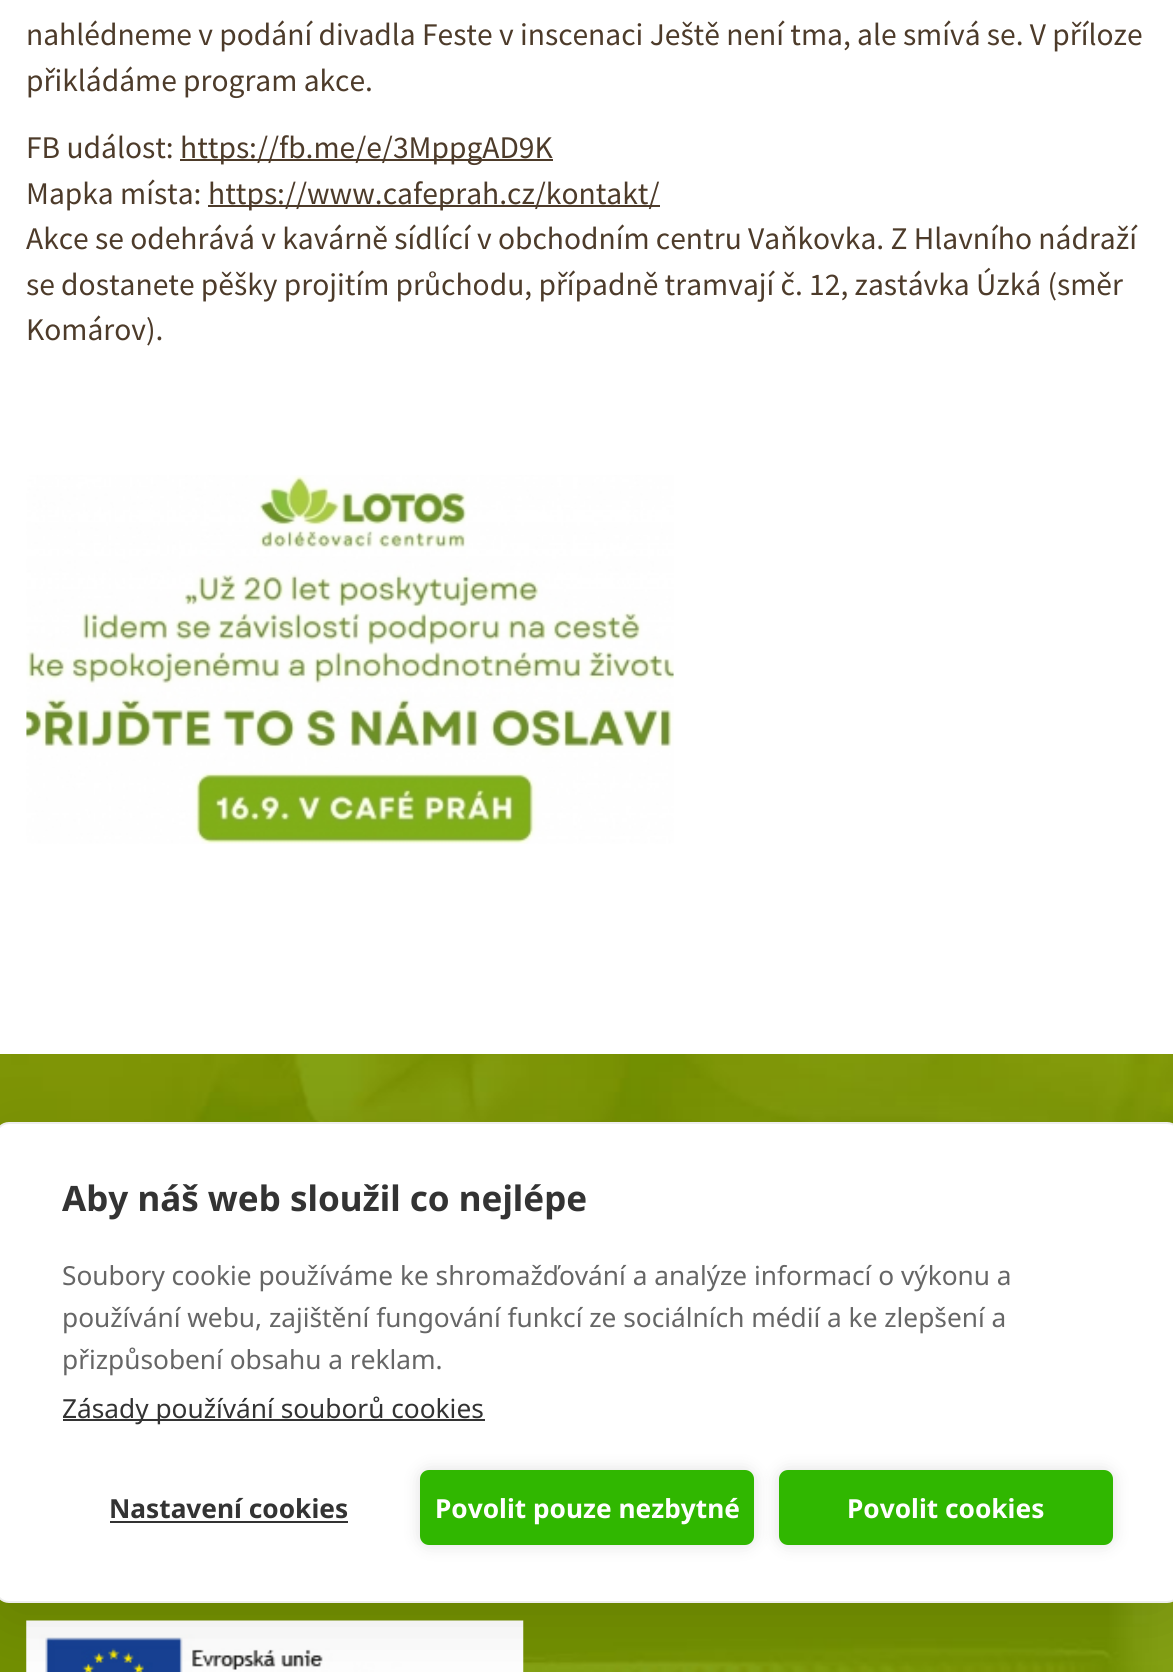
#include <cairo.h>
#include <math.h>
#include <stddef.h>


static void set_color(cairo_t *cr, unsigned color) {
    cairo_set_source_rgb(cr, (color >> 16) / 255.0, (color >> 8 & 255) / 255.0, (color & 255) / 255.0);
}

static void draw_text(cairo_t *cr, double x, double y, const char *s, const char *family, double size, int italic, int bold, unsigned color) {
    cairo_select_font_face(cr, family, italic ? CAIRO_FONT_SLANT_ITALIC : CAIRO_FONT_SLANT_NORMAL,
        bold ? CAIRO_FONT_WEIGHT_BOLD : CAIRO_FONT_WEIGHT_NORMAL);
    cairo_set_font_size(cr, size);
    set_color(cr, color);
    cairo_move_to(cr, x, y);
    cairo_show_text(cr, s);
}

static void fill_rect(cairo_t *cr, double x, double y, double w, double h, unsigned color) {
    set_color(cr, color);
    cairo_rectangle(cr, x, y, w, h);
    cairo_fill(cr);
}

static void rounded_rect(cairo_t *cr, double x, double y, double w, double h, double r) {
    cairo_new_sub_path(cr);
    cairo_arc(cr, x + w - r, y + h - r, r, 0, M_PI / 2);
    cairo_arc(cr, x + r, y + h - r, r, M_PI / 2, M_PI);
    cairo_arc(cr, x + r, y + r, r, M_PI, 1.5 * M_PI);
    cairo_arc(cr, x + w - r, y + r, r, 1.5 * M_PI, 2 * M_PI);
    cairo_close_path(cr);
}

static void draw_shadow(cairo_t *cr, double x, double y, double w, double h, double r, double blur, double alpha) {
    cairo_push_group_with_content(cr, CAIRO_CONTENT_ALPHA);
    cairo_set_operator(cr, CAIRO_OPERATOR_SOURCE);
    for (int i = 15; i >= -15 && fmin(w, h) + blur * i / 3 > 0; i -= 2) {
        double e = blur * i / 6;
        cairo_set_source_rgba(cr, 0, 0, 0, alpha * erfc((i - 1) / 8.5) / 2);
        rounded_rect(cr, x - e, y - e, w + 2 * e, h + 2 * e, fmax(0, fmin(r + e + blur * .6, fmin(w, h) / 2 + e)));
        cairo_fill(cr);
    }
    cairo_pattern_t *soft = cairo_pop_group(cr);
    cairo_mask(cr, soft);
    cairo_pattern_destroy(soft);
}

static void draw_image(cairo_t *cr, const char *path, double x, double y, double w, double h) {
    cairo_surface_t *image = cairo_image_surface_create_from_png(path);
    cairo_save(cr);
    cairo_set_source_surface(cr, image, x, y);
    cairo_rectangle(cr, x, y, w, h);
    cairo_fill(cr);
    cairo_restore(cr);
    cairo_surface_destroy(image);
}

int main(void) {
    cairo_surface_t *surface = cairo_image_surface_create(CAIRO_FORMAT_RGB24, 1173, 1672);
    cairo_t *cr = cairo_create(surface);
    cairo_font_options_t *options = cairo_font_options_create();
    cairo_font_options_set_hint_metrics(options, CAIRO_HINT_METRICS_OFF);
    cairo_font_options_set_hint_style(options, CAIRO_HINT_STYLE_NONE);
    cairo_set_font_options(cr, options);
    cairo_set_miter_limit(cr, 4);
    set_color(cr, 0xFFFFFF);
    cairo_paint(cr);
    draw_image(cr, "assets/img1.png", 0, 1054, 1173, 618);
    draw_text(cr, 26, 45, "nahlédneme v podání divadla Feste v inscenaci Ještě není tma, ale smívá se. V příloze", "Source Sans Pro", 31.5, 0, 0, 0x4D3B2A);
    draw_text(cr, 26, 91, "přikládáme program akce.", "Source Sans Pro", 31.5, 0, 0, 0x4D3B2A);
    draw_text(cr, 26, 158, "FB událost:", "Source Sans Pro", 31.5, 0, 0, 0x4D3B2A);
    fill_rect(cr, 180, 159, 373, 2, 0x4D3B2A);
    draw_text(cr, 180, 158, "https://fb.me/e/3MppgAD9K", "Source Sans Pro", 31.5, 0, 0, 0x4D3B2A);
    draw_text(cr, 26, 204, "Mapka místa:", "Source Sans Pro", 31.5, 0, 0, 0x4D3B2A);
    fill_rect(cr, 208, 205, 452, 2, 0x4D3B2A);
    draw_text(cr, 208, 204, "https://www.cafeprah.cz/kontakt/", "Source Sans Pro", 31.5, 0, 0, 0x4D3B2A);
    draw_text(cr, 26, 249, "Akce se odehrává v kavárně sídlící v obchodním centru Vaňkovka. Z Hlavního nádraží", "Source Sans Pro", 31.5, 0, 0, 0x4D3B2A);
    draw_text(cr, 26, 295, "se dostanete pěšky projitím průchodu, případně tramvají č. 12, zastávka Úzká (směr", "Source Sans Pro", 31.5, 0, 0, 0x4D3B2A);
    draw_text(cr, 26, 340, "Komárov).", "Source Sans Pro", 31.5, 0, 0, 0x4D3B2A);
    draw_image(cr, "assets/img2.png", 26, 475, 648, 369);
    draw_image(cr, "assets/img3.png", 26, 1620, 498, 52);
    set_color(cr, 0x000000);
    draw_shadow(cr, -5, 1139, 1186, 482, 14, 35, 0.1);
    set_color(cr, 0xFFFFFF);
    rounded_rect(cr, -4, 1123, 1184, 479, 13);
    cairo_fill_preserve(cr);
    set_color(cr, 0xEEEEEE);
    cairo_stroke(cr);
    draw_text(cr, 62, 1211, "Aby náš web sloužil co nejlépe", "Noto Sans", 35, 0, 1, 0x333333);
    draw_text(cr, 62, 1285, "Soubory cookie používáme ke shromažďování a analýze informací o výkonu a", "Noto Sans", 26.25, 0, 0, 0x666666);
    draw_text(cr, 62, 1327, "používání webu, zajištění fungování funkcí ze sociálních médií a ke zlepšení a", "Noto Sans", 26.25, 0, 0, 0x666666);
    draw_text(cr, 62, 1369, "přizpůsobení obsahu a reklam.", "Noto Sans", 26.25, 0, 0, 0x666666);
    fill_rect(cr, 63, 1419, 422, 2, 0x333333);
    draw_text(cr, 62, 1418, "Zásady používání souborů cookies", "Noto Sans", 26.25, 0, 0, 0x333333);
    draw_text(cr, 109, 1518, "Nastavení cookies", "Noto Sans", 26.25, 0, 1, 0x333333);
    fill_rect(cr, 110, 1521, 238, 2, 0x333333);
    set_color(cr, 0x000000);
    draw_shadow(cr, 420, 1470, 334, 75, 9, 9, 0.12);
    set_color(cr, 0x30B700);
    rounded_rect(cr, 420, 1470, 334, 75, 9);
    cairo_fill(cr);
    draw_text(cr, 435, 1518, "Povolit pouze nezbytné", "Noto Sans", 26.25, 0, 1, 0xFFFFFF);
    set_color(cr, 0x000000);
    draw_shadow(cr, 779, 1470, 334, 75, 9, 9, 0.12);
    set_color(cr, 0x30B700);
    rounded_rect(cr, 779, 1470, 334, 75, 9);
    cairo_fill(cr);
    draw_text(cr, 847, 1518, "Povolit cookies", "Noto Sans", 26.25, 0, 1, 0xFFFFFF);
    cairo_surface_write_to_png(surface, "output.png");
    cairo_font_options_destroy(options);
    cairo_destroy(cr);
    cairo_surface_destroy(surface);
    return 0;
}
